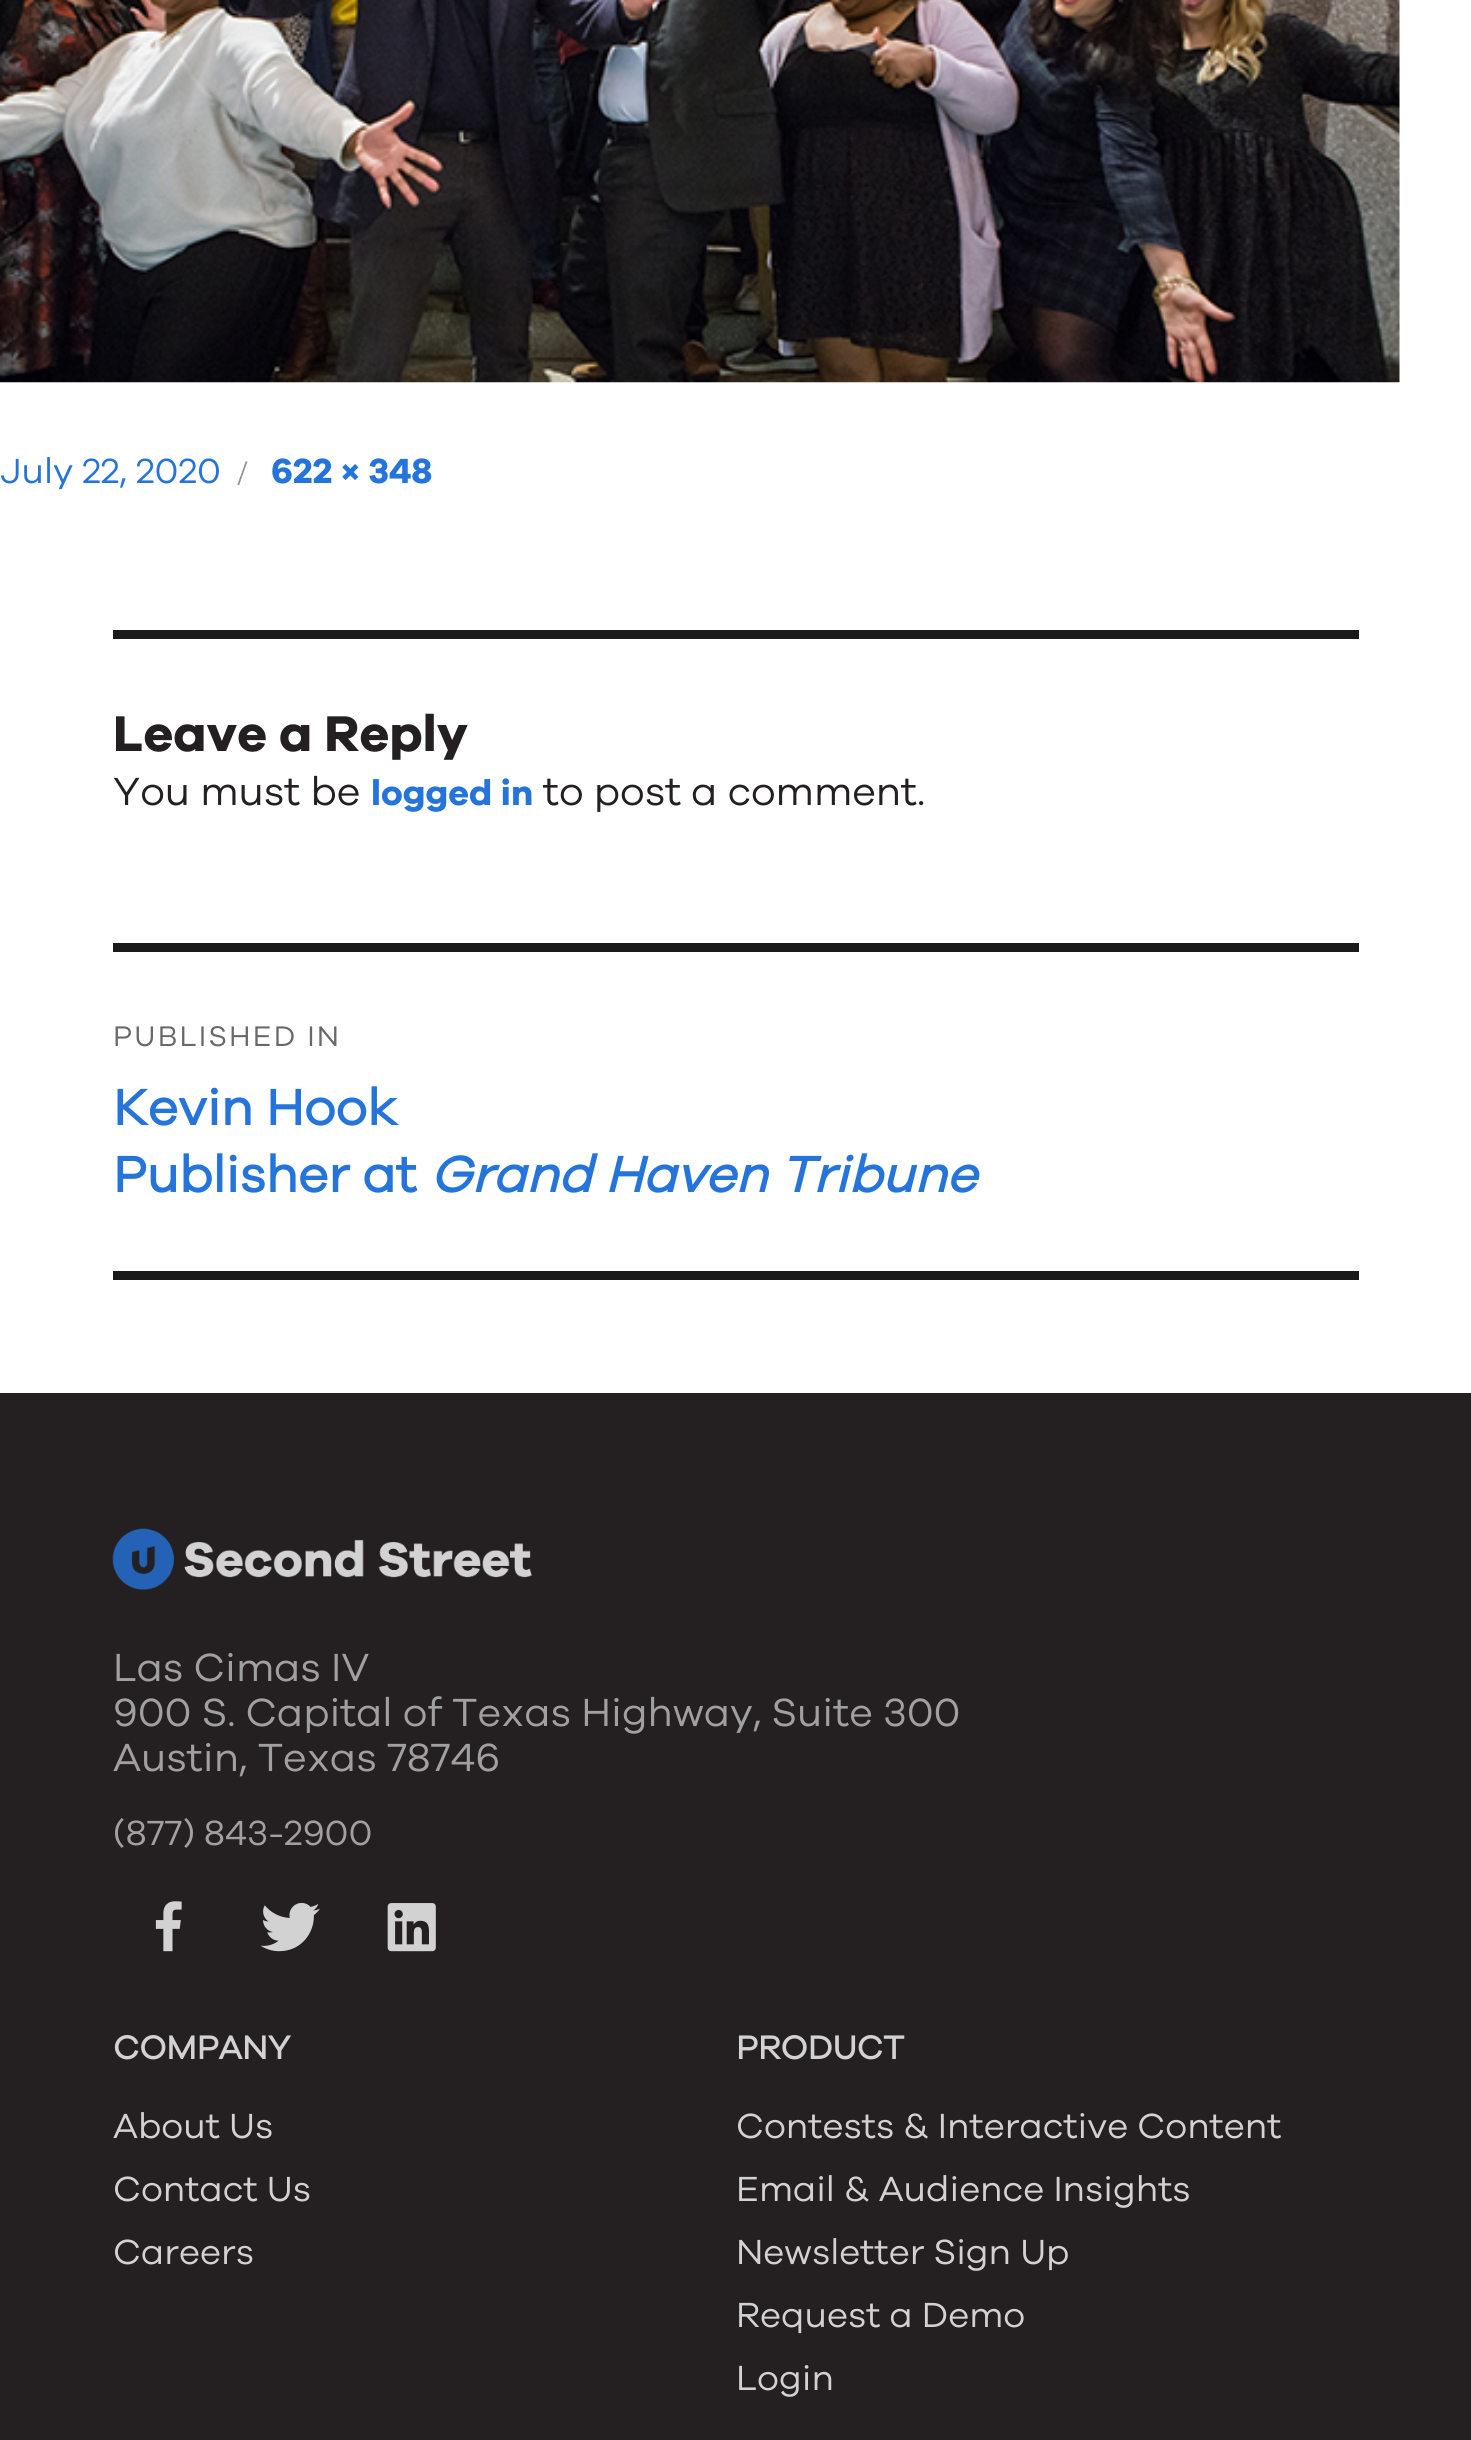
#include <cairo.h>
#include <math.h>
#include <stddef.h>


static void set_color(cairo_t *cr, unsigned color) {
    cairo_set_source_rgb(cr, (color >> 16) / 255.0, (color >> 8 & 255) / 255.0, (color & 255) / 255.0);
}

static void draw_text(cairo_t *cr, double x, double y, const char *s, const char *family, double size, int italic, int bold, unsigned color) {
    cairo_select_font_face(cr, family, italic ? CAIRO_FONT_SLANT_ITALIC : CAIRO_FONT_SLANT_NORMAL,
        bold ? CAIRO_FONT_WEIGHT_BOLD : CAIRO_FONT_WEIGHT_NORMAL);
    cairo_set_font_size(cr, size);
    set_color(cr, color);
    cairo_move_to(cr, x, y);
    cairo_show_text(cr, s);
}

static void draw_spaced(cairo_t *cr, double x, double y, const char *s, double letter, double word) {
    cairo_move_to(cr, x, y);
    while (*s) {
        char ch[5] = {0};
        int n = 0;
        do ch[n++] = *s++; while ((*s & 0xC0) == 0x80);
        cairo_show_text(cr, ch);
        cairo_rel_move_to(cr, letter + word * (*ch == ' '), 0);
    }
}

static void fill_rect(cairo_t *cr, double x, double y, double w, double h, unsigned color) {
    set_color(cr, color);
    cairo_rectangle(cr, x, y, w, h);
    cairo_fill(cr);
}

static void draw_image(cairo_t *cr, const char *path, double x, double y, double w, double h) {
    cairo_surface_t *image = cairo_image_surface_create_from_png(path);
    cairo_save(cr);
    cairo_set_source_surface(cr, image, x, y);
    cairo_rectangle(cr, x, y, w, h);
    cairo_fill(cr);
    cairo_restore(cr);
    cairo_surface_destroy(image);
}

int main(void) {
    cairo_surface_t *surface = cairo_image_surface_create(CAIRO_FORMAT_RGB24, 1471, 2440);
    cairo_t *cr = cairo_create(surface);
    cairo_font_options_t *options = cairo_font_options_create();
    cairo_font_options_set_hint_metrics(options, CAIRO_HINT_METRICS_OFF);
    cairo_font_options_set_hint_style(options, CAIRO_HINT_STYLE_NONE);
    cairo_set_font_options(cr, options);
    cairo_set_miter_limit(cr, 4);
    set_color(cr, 0xFFFFFF);
    cairo_paint(cr);
    draw_image(cr, "assets/img1.png", 0, 0, 1400, 383);
    draw_text(cr, 0, 483, "July 22, 2020", "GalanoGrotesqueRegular", 36, 0, 0, 0x2574DB);
    draw_text(cr, 237, 483, "/", "GalanoGrotesqueRegular", 29.25, 0, 0, 0x959595);
    draw_text(cr, 271, 483, "622 × 348", "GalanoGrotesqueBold", 36, 0, 1, 0x2574DB);
    fill_rect(cr, 113, 630, 1246, 9, 0x1A1A1A);
    draw_text(cr, 113, 751, "Leave a Reply", "GalanoGrotesqueBold", 51.75, 0, 1, 0x241F20);
    draw_text(cr, 113, 805, "You must be", "GalanoGrotesqueRegular", 40.5, 0, 0, 0x241F20);
    draw_text(cr, 371, 805, "logged in", "GalanoGrotesqueBold", 36, 0, 1, 0x2574DB);
    draw_text(cr, 543, 805, "to post a comment.", "GalanoGrotesqueRegular", 40.5, 0, 0, 0x241F20);
    fill_rect(cr, 113, 943, 1246, 9, 0x1A1A1A);
    fill_rect(cr, 113, 1271, 1246, 9, 0x1A1A1A);
    cairo_set_font_size(cr, 29.25);
    set_color(cr, 0x686868);
    draw_spaced(cr, 113, 1046, "PUBLISHED IN", 2.25, 0);
    draw_text(cr, 113, 1125, "Kevin Hook", "GalanoGrotesqueRegular", 51.75, 0, 1, 0x2574DB);
    draw_text(cr, 113, 1192, "Publisher at", "GalanoGrotesqueRegular", 51.75, 0, 1, 0x2574DB);
    draw_text(cr, 430, 1192, "Grand Haven Tribune", "GalanoGrotesqueRegular", 51.75, 1, 1, 0x2574DB);
    fill_rect(cr, 0, 1393, 1471, 1047, 0x241F20);
    draw_image(cr, "assets/img2.png", 112, 1528, 420, 62);
    draw_text(cr, 113, 1681, "Las Cimas IV", "GalanoGrotesqueRegular", 40.5, 0, 0, 0xA1A0A0);
    draw_text(cr, 113, 1726, "900 S. Capital of Texas Highway, Suite 300", "GalanoGrotesqueRegular", 40.5, 0, 0, 0xA1A0A0);
    draw_text(cr, 113, 1771, "Austin, Texas 78746", "GalanoGrotesqueRegular", 40.5, 0, 0, 0xA1A0A0);
    draw_text(cr, 113, 1845, "(877) 843-2900", "GalanoGrotesqueRegular", 36, 0, 0, 0xA1A0A0);
    draw_image(cr, "assets/img3.png", 155, 1901, 27, 51);
    draw_image(cr, "assets/img4.png", 260, 1903, 60, 49);
    draw_image(cr, "assets/img5.png", 387, 1903, 49, 49);
    draw_text(cr, 113, 2059, "COMPANY", "GalanoGrotesqueRegular", 33.75, 0, 1, 0xD3D2D2);
    draw_text(cr, 113, 2138, "About Us", "GalanoGrotesqueRegular", 36, 0, 0, 0xD3D2D2);
    draw_text(cr, 113, 2201, "Contact Us", "GalanoGrotesqueRegular", 36, 0, 0, 0xD3D2D2);
    draw_text(cr, 113, 2264, "Careers", "GalanoGrotesqueRegular", 36, 0, 0, 0xD3D2D2);
    draw_text(cr, 736, 2059, "PRODUCT", "GalanoGrotesqueRegular", 33.75, 0, 1, 0xD3D2D2);
    draw_text(cr, 736, 2138, "Contests & Interactive Content", "GalanoGrotesqueRegular", 36, 0, 0, 0xD3D2D2);
    draw_text(cr, 736, 2201, "Email & Audience Insights", "GalanoGrotesqueRegular", 36, 0, 0, 0xD3D2D2);
    draw_text(cr, 736, 2264, "Newsletter Sign Up", "GalanoGrotesqueRegular", 36, 0, 0, 0xD3D2D2);
    draw_text(cr, 736, 2327, "Request a Demo", "GalanoGrotesqueRegular", 36, 0, 0, 0xD3D2D2);
    draw_text(cr, 736, 2390, "Login", "GalanoGrotesqueRegular", 36, 0, 0, 0xD3D2D2);
    cairo_surface_write_to_png(surface, "output.png");
    cairo_font_options_destroy(options);
    cairo_destroy(cr);
    cairo_surface_destroy(surface);
    return 0;
}
